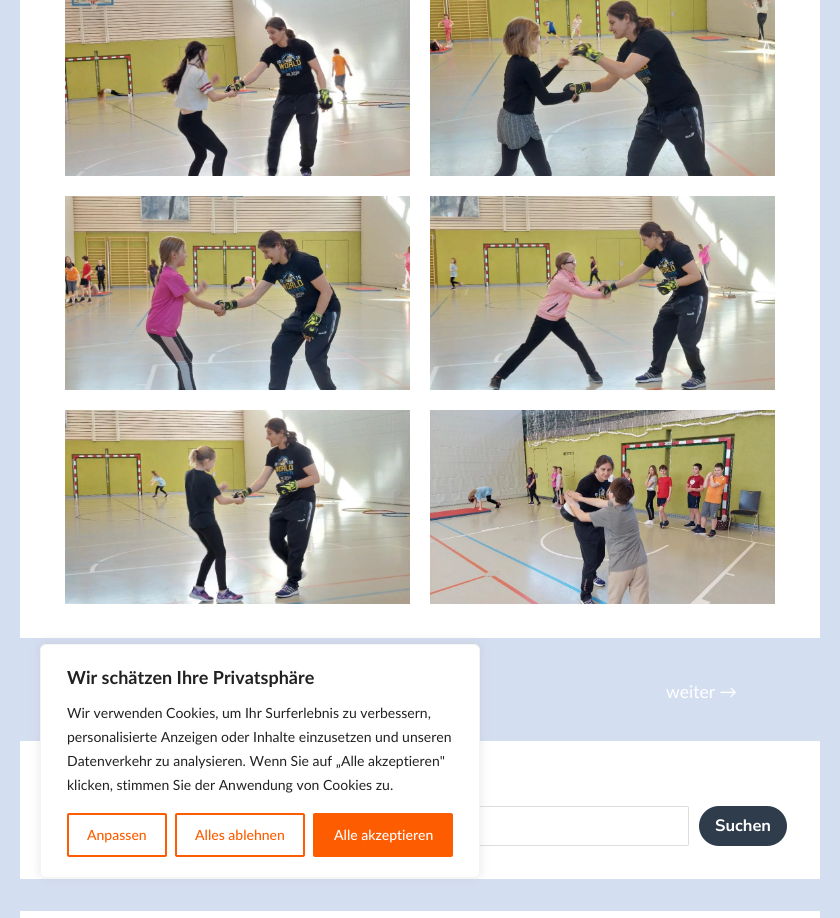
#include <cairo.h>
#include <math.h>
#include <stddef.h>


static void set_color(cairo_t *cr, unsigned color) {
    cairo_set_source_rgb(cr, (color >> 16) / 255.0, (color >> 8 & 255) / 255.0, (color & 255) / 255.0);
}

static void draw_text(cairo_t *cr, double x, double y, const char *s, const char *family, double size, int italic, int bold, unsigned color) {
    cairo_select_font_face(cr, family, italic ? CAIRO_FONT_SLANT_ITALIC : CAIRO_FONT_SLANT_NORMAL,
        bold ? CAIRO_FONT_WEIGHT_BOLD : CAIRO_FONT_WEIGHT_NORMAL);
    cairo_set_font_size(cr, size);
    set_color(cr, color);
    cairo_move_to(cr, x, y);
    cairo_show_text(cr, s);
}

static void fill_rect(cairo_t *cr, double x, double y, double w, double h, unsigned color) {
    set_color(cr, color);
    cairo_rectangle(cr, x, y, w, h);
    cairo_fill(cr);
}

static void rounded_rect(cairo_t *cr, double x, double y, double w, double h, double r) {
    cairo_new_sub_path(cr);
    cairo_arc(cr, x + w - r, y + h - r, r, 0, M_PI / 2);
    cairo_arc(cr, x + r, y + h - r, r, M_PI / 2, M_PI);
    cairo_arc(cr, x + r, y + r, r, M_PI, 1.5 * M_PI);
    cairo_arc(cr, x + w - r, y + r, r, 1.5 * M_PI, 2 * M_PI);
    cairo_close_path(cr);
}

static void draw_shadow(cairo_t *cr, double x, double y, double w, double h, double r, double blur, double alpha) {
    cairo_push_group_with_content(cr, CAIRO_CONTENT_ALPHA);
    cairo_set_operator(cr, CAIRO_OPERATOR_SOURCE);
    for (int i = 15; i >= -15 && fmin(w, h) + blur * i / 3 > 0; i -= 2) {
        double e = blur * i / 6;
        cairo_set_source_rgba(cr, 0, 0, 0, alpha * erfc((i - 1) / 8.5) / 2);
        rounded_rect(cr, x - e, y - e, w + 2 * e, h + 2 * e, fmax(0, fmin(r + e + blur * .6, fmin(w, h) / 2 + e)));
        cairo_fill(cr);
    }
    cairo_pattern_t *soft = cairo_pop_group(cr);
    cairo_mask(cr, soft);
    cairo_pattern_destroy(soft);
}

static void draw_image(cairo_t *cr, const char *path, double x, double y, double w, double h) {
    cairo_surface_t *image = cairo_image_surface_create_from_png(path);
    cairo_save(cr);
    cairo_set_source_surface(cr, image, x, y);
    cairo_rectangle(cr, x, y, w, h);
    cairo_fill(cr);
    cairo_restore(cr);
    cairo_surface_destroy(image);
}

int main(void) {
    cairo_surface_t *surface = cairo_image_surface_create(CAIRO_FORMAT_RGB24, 840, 918);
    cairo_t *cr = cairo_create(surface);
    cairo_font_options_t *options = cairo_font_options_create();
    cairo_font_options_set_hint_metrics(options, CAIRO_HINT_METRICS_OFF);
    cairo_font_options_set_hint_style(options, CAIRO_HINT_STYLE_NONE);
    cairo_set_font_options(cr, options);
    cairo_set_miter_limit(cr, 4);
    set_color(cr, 0xD4DEF1);
    cairo_paint(cr);
    fill_rect(cr, 20, 0, 800, 638, 0xFFFFFF);
    fill_rect(cr, 20, 741, 800, 138, 0xFFFFFF);
    rounded_rect(cr, 53.5, 806.5, 635, 39, 1.5);
    set_color(cr, 0xDDDDDD);
    cairo_set_line_width(cr, 1);
    cairo_stroke(cr);
    set_color(cr, 0xACABAB);
    draw_shadow(cr, 40, 643, 440, 234, 6, 5, 0.3);
    set_color(cr, 0xFFFFFF);
    rounded_rect(cr, 40.5, 644.5, 439, 233, 5.5);
    cairo_fill_preserve(cr);
    set_color(cr, 0xF4F4F4);
    cairo_stroke(cr);
    draw_text(cr, 67, 684, "Wir schätzen Ihre Privatsphäre", "Lato", 18, 0, 1, 0x212121);
    draw_text(cr, 67, 718, "Wir verwenden Cookies, um Ihr Surferlebnis zu verbessern,", "Lato", 14, 0, 0, 0x212121);
    draw_text(cr, 67, 742, "personalisierte Anzeigen oder Inhalte einzusetzen und unseren", "Lato", 14, 0, 0, 0x212121);
    draw_text(cr, 67, 766, "Datenverkehr zu analysieren. Wenn Sie auf „Alle akzeptieren\"", "Lato", 14, 0, 0, 0x212121);
    draw_text(cr, 67, 790, "klicken, stimmen Sie der Anwendung von Cookies zu.", "Lato", 14, 0, 0, 0x212121);
    rounded_rect(cr, 68, 814, 98, 42, 1);
    set_color(cr, 0xFD5C00);
    cairo_set_line_width(cr, 2);
    cairo_stroke(cr);
    draw_text(cr, 87, 840, "Anpassen", "Lato Medium", 14, 0, 0, 0xFD5C00);
    rounded_rect(cr, 176, 814, 128, 42, 1);
    cairo_stroke(cr);
    draw_text(cr, 195, 840, "Alles ablehnen", "Lato Medium", 14, 0, 0, 0xFD5C00);
    rounded_rect(cr, 314, 814, 138, 42, 1);
    cairo_fill_preserve(cr);
    cairo_stroke(cr);
    draw_text(cr, 334, 840, "Alle akzeptieren", "Lato Medium", 14, 0, 0, 0xFFFFFF);
    draw_image(cr, "assets/img1.png", 65, 0, 345, 176);
    draw_image(cr, "assets/img2.png", 65, 196, 345, 194);
    draw_image(cr, "assets/img3.png", 65, 410, 345, 194);
    draw_image(cr, "assets/img4.png", 430, 0, 345, 176);
    draw_image(cr, "assets/img5.png", 430, 196, 345, 194);
    draw_image(cr, "assets/img6.png", 430, 410, 345, 194);
    draw_text(cr, 666, 698, "weiter →", "Lato", 17.5, 0, 0, 0xFFFFFF);
    set_color(cr, 0x2F3C4C);
    rounded_rect(cr, 699, 806, 88, 40, 20);
    cairo_fill(cr);
    draw_text(cr, 715, 831, "Suchen", "Nunito Sans", 16.5, 0, 1, 0xFFFFFF);
    fill_rect(cr, 20, 911, 800, 7, 0xFFFFFF);
    cairo_surface_write_to_png(surface, "output.png");
    cairo_font_options_destroy(options);
    cairo_destroy(cr);
    cairo_surface_destroy(surface);
    return 0;
}
